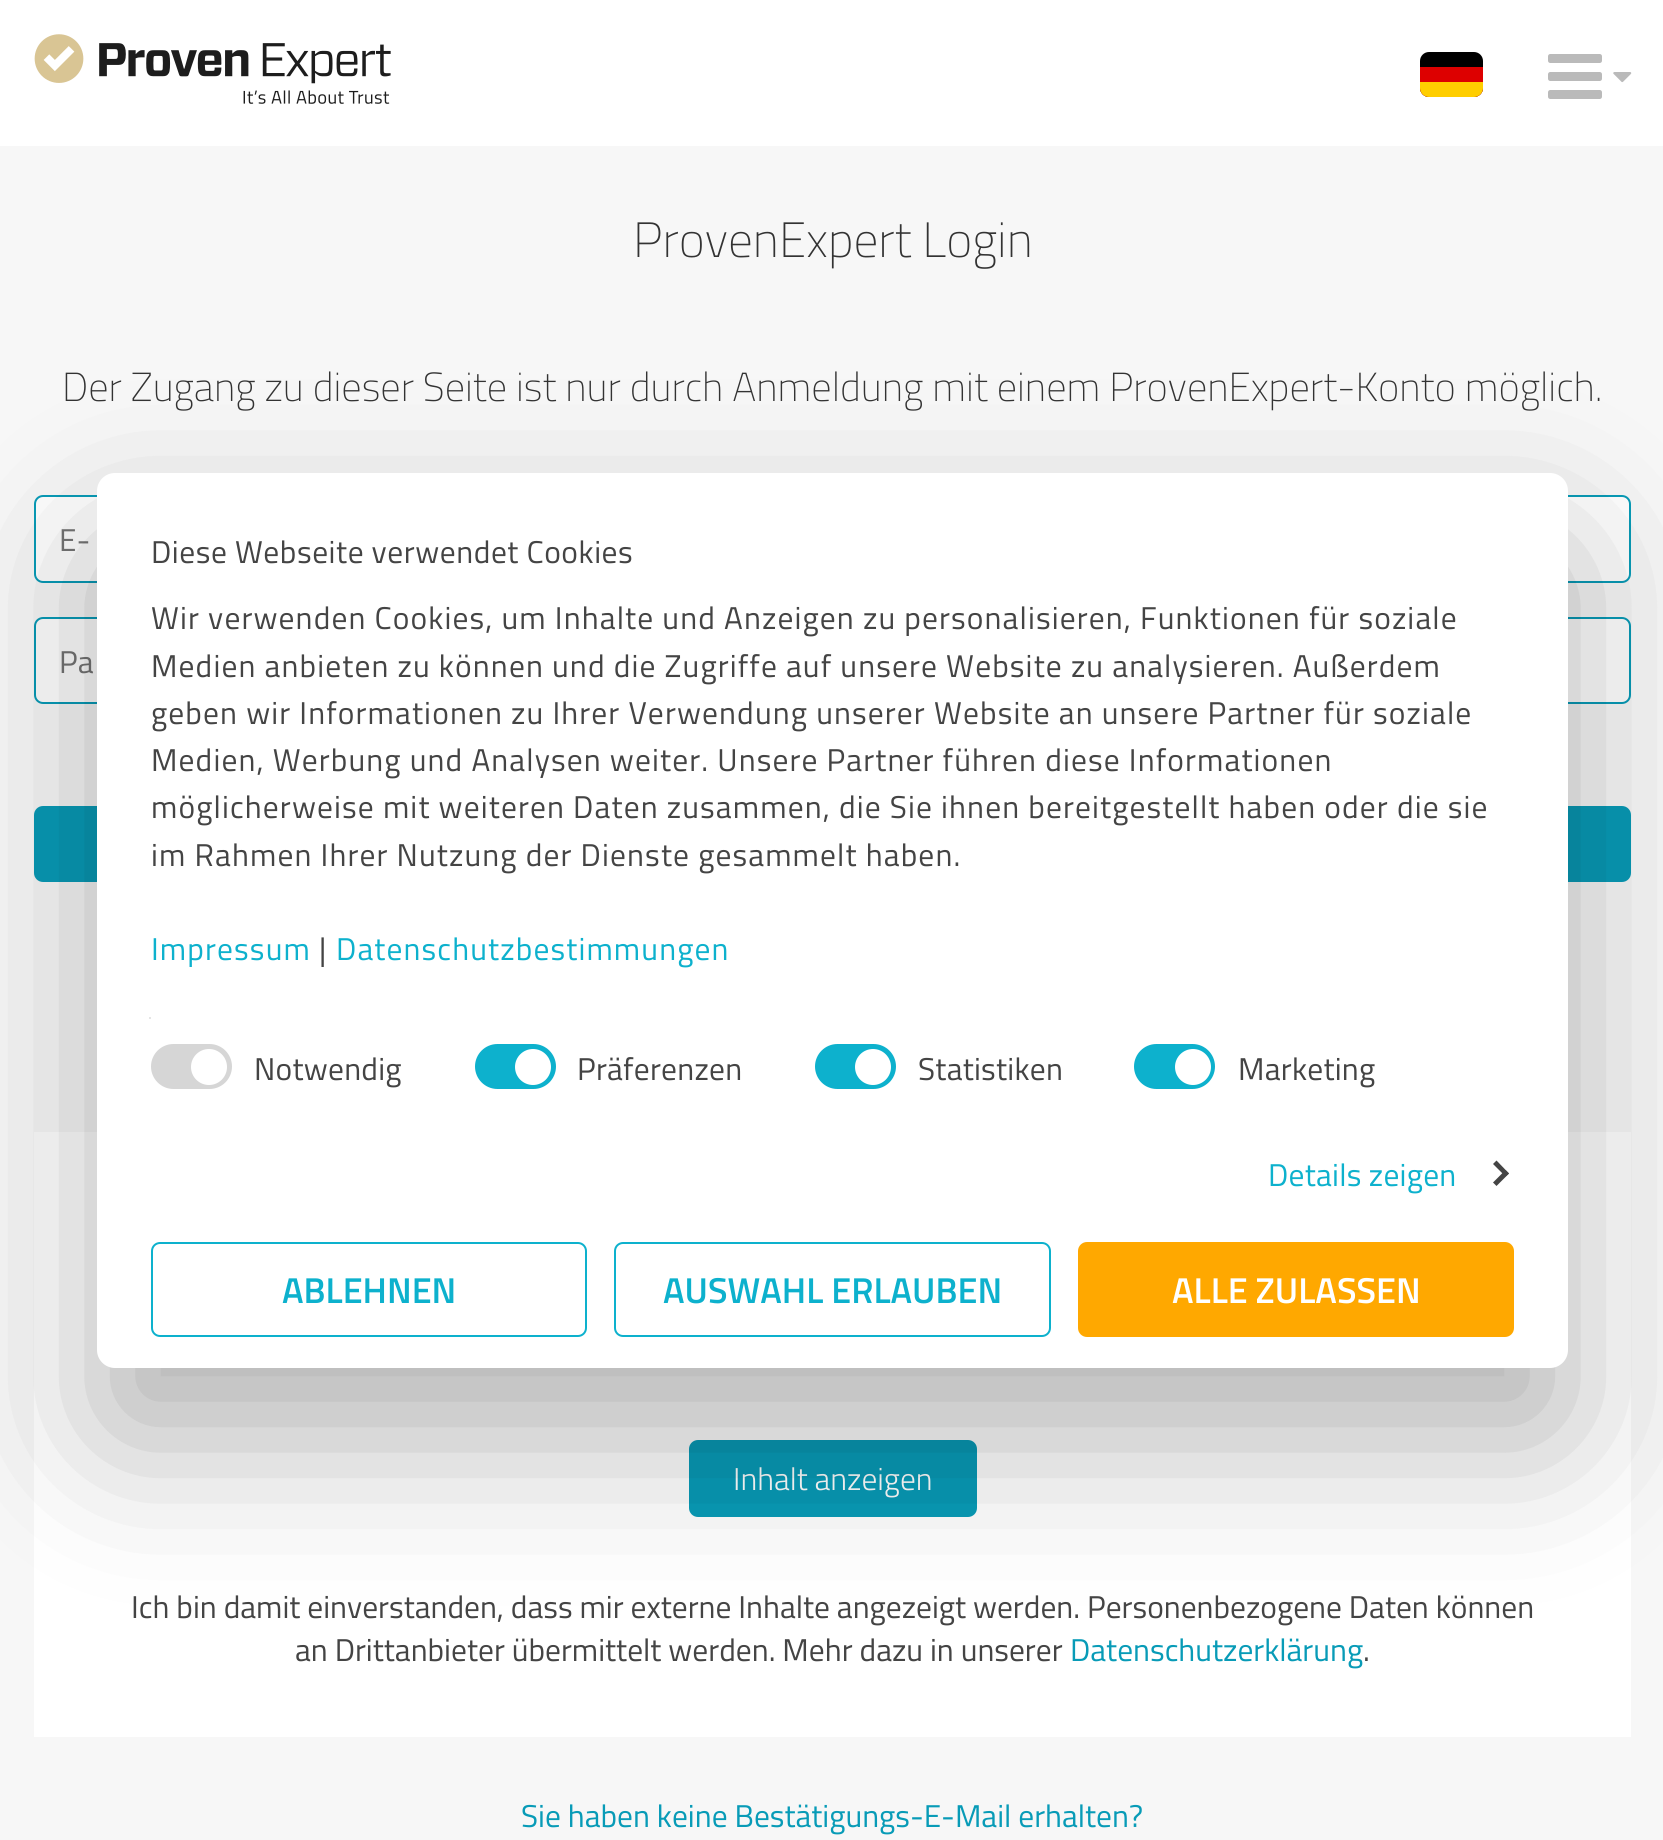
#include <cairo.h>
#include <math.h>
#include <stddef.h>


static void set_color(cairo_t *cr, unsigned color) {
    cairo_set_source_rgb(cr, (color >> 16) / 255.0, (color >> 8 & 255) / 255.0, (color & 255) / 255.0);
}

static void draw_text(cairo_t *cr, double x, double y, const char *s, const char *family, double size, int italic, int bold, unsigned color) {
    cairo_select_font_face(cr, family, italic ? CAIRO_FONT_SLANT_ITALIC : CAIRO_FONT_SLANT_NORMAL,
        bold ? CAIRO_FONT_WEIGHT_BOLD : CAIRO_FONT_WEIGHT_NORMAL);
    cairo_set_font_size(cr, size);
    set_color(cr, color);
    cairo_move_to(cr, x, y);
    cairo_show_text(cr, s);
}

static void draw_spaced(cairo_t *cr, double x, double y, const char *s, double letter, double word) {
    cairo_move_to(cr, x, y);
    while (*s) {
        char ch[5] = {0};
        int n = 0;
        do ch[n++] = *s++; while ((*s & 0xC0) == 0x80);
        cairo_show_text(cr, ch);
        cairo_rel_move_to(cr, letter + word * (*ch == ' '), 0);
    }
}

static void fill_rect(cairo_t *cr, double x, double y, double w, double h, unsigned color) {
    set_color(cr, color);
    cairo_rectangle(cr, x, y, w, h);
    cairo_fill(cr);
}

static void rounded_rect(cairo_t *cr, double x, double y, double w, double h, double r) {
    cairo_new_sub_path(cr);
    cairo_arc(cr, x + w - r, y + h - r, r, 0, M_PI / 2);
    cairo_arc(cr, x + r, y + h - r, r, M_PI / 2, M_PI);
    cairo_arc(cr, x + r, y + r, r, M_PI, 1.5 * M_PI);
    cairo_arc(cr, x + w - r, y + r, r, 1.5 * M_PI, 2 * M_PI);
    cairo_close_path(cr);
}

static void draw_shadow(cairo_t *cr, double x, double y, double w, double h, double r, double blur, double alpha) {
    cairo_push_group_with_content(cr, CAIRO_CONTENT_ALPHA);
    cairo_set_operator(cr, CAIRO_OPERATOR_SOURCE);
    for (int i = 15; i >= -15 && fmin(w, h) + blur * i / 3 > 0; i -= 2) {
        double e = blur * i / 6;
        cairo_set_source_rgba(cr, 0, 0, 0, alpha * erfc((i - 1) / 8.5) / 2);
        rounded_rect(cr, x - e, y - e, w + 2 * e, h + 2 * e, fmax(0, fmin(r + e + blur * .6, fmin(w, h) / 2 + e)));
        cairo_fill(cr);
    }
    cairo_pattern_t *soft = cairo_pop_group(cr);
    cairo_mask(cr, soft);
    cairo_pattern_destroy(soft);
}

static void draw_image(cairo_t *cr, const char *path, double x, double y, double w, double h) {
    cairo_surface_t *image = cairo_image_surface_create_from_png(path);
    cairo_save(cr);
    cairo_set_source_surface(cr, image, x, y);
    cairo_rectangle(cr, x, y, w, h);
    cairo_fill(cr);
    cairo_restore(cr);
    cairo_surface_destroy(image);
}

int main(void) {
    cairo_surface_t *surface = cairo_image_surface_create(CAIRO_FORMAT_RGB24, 1663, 1840);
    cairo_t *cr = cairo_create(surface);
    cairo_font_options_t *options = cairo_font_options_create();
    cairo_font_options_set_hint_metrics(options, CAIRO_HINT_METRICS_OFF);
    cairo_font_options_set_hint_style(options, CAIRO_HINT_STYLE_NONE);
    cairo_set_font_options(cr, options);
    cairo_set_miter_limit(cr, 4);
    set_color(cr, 0xFFFFFF);
    cairo_paint(cr);
    draw_image(cr, "assets/img1.png", 34, 34, 357, 70);
    set_color(cr, 0x000000);
    rounded_rect(cr, 1420, 52, 63, 45, 9);
    cairo_fill(cr);
    set_color(cr, 0xDD0000);
    cairo_new_path(cr);
    cairo_move_to(cr, 1420, 67);
    cairo_line_to(cr, 1483, 67);
    cairo_line_to(cr, 1483, 88);
    cairo_curve_to(cr, 1483, 93, 1479, 97, 1474, 97);
    cairo_line_to(cr, 1429, 97);
    cairo_curve_to(cr, 1424, 97, 1420, 93, 1420, 88);
    cairo_close_path(cr);
    cairo_fill(cr);
    set_color(cr, 0xFFCE00);
    cairo_new_path(cr);
    cairo_move_to(cr, 1420, 82);
    cairo_line_to(cr, 1483, 82);
    cairo_line_to(cr, 1483, 88);
    cairo_curve_to(cr, 1483, 93, 1479, 97, 1474, 97);
    cairo_line_to(cr, 1429, 97);
    cairo_curve_to(cr, 1424, 97, 1420, 93, 1420, 88);
    cairo_close_path(cr);
    cairo_fill(cr);
    draw_image(cr, "assets/img2.png", 1548, 54, 54, 45);
    draw_image(cr, "assets/img3.png", 1613, 72, 19, 11);
    fill_rect(cr, 0, 146, 1663, 1694, 0xF7F7F7);
    draw_text(cr, 633, 257, "ProvenExpert Login", "Titillium Web ExtraLight", 49.5, 0, 0, 0x333333);
    draw_text(cr, 62, 401, "Der Zugang zu dieser Seite ist nur durch Anmeldung mit einem ProvenExpert-Konto möglich.", "Titillium Web ExtraLight", 40.5, 0, 0, 0x333333);
    set_color(cr, 0xFFFFFF);
    rounded_rect(cr, 35, 496, 1595, 86, 8);
    cairo_fill_preserve(cr);
    set_color(cr, 0x089BB7);
    cairo_stroke(cr);
    draw_text(cr, 59, 551, "E-", "Titillium Web", 31.5, 0, 0, 0x757575);
    set_color(cr, 0xFFFFFF);
    rounded_rect(cr, 35, 618, 1595, 85, 8);
    cairo_fill_preserve(cr);
    set_color(cr, 0x089BB7);
    cairo_stroke(cr);
    draw_text(cr, 59, 673, "Pa", "Titillium Web", 31.5, 0, 0, 0x757575);
    set_color(cr, 0x089BB7);
    rounded_rect(cr, 34, 806, 1597, 76, 9);
    cairo_fill(cr);
    fill_rect(cr, 34, 1132, 1597, 605, 0xFFFFFF);
    set_color(cr, 0x089BB7);
    rounded_rect(cr, 689, 1440, 288, 77, 9);
    cairo_fill(cr);
    draw_text(cr, 733, 1490, "Inhalt anzeigen", "Titillium Web Light", 31.5, 0, 0, 0xFFFFFF);
    draw_text(cr, 131, 1618, "Ich bin damit einverstanden, dass mir externe Inhalte angezeigt werden. Personenbezogene Daten können", "Titillium Web", 31.5, 0, 0, 0x444444);
    draw_text(cr, 295, 1661, "an Drittanbieter übermittelt werden. Mehr dazu in unserer", "Titillium Web", 31.5, 0, 0, 0x444444);
    draw_text(cr, 1070, 1661, "Datenschutzerklärung", "Titillium Web", 31.5, 0, 0, 0x089BB7);
    draw_text(cr, 1363, 1661, ".", "Titillium Web", 31.5, 0, 0, 0x444444);
    draw_text(cr, 521, 1827, "Sie haben keine Bestätigungs-E-Mail erhalten?", "Titillium Web", 31.5, 0, 0, 0x089BB7);
    set_color(cr, 0x000000);
    draw_shadow(cr, 97, 545, 1471, 895, 18, 76.5, 0.3);
    set_color(cr, 0xFFFFFF);
    rounded_rect(cr, 97, 473, 1471, 895, 18);
    cairo_fill(cr);
    set_color(cr, 0x444444);
    draw_spaced(cr, 151, 563, "Diese Webseite verwendet Cookies", 0.55, 0);
    draw_spaced(cr, 151, 629, "Wir verwenden Cookies, um Inhalte und Anzeigen zu personalisieren, Funktionen für soziale", 1.12, 0);
    draw_spaced(cr, 151, 677, "Medien anbieten zu können und die Zugriffe auf unsere Website zu analysieren. Außerdem", 1.12, 0);
    draw_spaced(cr, 151, 724, "geben wir Informationen zu Ihrer Verwendung unserer Website an unsere Partner für soziale", 1.12, 0);
    draw_spaced(cr, 151, 771, "Medien, Werbung und Analysen weiter. Unsere Partner führen diese Informationen", 1.12, 0);
    draw_spaced(cr, 151, 818, "möglicherweise mit weiteren Daten zusammen, die Sie ihnen bereitgestellt haben oder die sie", 1.12, 0);
    draw_spaced(cr, 151, 866, "im Rahmen Ihrer Nutzung der Dienste gesammelt haben.", 1.12, 0);
    set_color(cr, 0x0DB1CD);
    draw_spaced(cr, 151, 960, "Impressum", 1.12, 0);
    set_color(cr, 0x444444);
    draw_spaced(cr, 319, 960, "|", 1.12, 0);
    set_color(cr, 0x0DB1CD);
    draw_spaced(cr, 336, 960, "Datenschutzbestimmungen", 1.12, 0);
    fill_rect(cr, 149, 1017, 2, 2, 0xE5E5E5);
    set_color(cr, 0xD6D6D6);
    rounded_rect(cr, 151, 1044, 81, 45, 22.5);
    cairo_fill(cr);
    set_color(cr, 0xFFFFFF);
    cairo_arc(cr, 209, 1067, 18, 0, 2 * M_PI);
    cairo_fill(cr);
    set_color(cr, 0x444444);
    draw_spaced(cr, 254, 1080, "Notwendig", 0.25, 0);
    set_color(cr, 0x0DB1CD);
    rounded_rect(cr, 475, 1044, 81, 45, 22.5);
    cairo_fill(cr);
    set_color(cr, 0xFFFFFF);
    cairo_arc(cr, 533, 1067, 18, 0, 2 * M_PI);
    cairo_fill(cr);
    set_color(cr, 0x444444);
    draw_spaced(cr, 577, 1080, "Präferenzen", 0.25, 0);
    set_color(cr, 0x0DB1CD);
    rounded_rect(cr, 815, 1044, 81, 45, 22.5);
    cairo_fill(cr);
    set_color(cr, 0xFFFFFF);
    cairo_arc(cr, 873, 1067, 18, 0, 2 * M_PI);
    cairo_fill(cr);
    set_color(cr, 0x444444);
    draw_spaced(cr, 918, 1080, "Statistiken", 0.25, 0);
    set_color(cr, 0x0DB1CD);
    rounded_rect(cr, 1134, 1044, 81, 45, 22.5);
    cairo_fill(cr);
    set_color(cr, 0xFFFFFF);
    cairo_arc(cr, 1193, 1067, 18, 0, 2 * M_PI);
    cairo_fill(cr);
    set_color(cr, 0x444444);
    draw_spaced(cr, 1238, 1080, "Marketing", 0.25, 0);
    set_color(cr, 0x0DB1CD);
    draw_spaced(cr, 1268, 1186, "Details zeigen", 0.25, 0);
    set_color(cr, 0x444444);
    cairo_new_path(cr);
    cairo_move_to(cr, 1496.5, 1160.5);
    cairo_line_to(cr, 1509, 1173.5);
    cairo_line_to(cr, 1505.5, 1176.5);
    cairo_line_to(cr, 1493, 1164);
    cairo_close_path(cr);
    cairo_fill(cr);
    cairo_new_path(cr);
    cairo_move_to(cr, 1505.5, 1170);
    cairo_line_to(cr, 1509, 1173.5);
    cairo_line_to(cr, 1496.5, 1186);
    cairo_line_to(cr, 1493, 1182.5);
    cairo_close_path(cr);
    cairo_fill(cr);
    rounded_rect(cr, 152, 1243, 434, 93, 8);
    set_color(cr, 0x0DB1CD);
    cairo_stroke(cr);
    draw_text(cr, 282, 1303, "ABLEHNEN", "Titillium Web SemiBold", 36, 0, 0, 0x0DB1CD);
    rounded_rect(cr, 615, 1243, 435, 93, 8);
    cairo_stroke(cr);
    draw_text(cr, 663, 1303, "AUSWAHL ERLAUBEN", "Titillium Web SemiBold", 36, 0, 0, 0x0DB1CD);
    set_color(cr, 0xFFA800);
    rounded_rect(cr, 1078, 1242, 436, 95, 9);
    cairo_fill(cr);
    draw_text(cr, 1172, 1303, "ALLE ZULASSEN", "Titillium Web SemiBold", 36, 0, 0, 0xFFFFFF);
    cairo_surface_write_to_png(surface, "output.png");
    cairo_font_options_destroy(options);
    cairo_destroy(cr);
    cairo_surface_destroy(surface);
    return 0;
}
